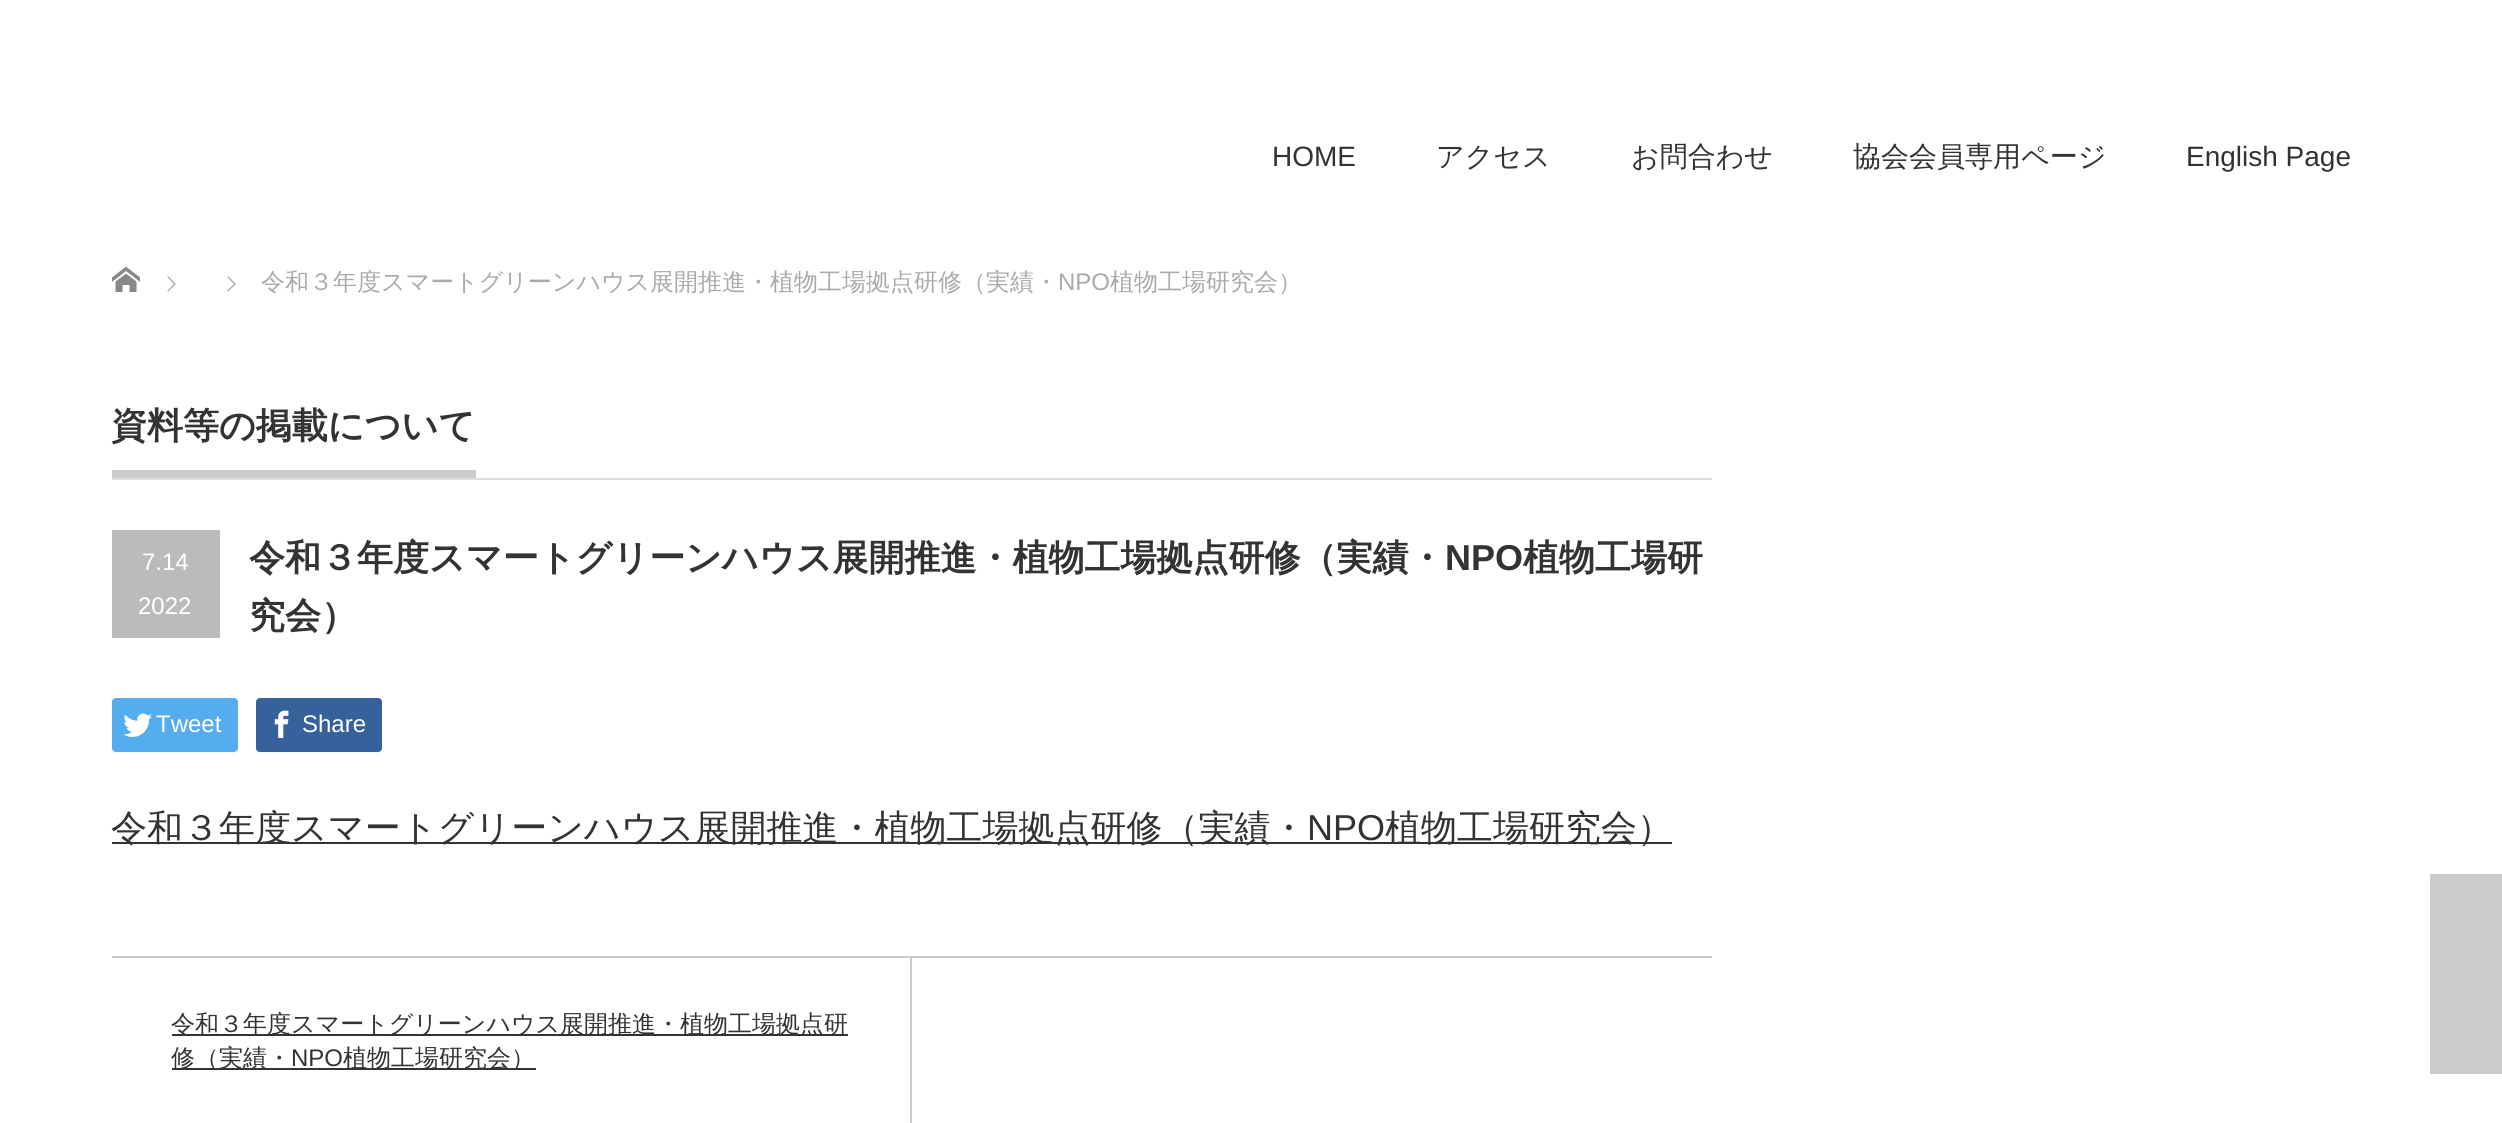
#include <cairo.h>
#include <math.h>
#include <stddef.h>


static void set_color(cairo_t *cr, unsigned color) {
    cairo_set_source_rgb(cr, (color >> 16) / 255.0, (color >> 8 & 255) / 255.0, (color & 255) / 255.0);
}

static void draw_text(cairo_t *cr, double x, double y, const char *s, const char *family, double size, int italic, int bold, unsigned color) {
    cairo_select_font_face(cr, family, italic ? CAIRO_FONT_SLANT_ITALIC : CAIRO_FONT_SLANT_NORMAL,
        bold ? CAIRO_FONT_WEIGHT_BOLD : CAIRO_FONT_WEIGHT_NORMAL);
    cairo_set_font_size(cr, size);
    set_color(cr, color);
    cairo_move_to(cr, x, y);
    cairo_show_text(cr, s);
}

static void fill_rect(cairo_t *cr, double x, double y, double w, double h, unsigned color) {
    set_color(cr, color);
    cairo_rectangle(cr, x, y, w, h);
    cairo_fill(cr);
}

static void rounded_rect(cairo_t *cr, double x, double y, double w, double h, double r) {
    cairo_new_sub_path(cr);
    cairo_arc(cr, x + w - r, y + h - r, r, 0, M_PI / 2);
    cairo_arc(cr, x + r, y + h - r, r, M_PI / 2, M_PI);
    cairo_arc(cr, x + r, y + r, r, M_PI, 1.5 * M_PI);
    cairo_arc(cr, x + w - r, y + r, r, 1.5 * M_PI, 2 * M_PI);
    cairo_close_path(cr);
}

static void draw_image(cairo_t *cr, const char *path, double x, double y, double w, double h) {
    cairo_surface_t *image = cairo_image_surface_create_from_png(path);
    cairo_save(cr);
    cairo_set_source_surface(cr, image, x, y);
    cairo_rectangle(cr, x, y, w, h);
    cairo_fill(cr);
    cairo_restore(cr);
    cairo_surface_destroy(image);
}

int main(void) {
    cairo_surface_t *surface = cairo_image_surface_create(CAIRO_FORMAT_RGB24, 2502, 1123);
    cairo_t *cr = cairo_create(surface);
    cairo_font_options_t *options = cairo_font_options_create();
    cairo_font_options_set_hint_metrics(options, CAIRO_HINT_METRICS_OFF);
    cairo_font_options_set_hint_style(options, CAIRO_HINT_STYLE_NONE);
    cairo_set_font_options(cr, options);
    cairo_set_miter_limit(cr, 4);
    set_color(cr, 0xFFFFFF);
    cairo_paint(cr);
    draw_text(cr, 1272, 166, "HOME", "Liberation Sans", 28, 0, 0, 0x333333);
    draw_text(cr, 1436, 166, "アクセス", "WenQuanYi Zen Hei Medium", 28, 0, 0, 0x333333);
    draw_text(cr, 1631, 166, "お問合わせ", "WenQuanYi Zen Hei Medium", 28, 0, 0, 0x333333);
    draw_text(cr, 1853, 166, "協会会員専用ページ", "WenQuanYi Zen Hei Medium", 28, 0, 0, 0x333333);
    draw_text(cr, 2186, 166, "English Page", "Liberation Sans", 28, 0, 0, 0x333333);
    draw_image(cr, "assets/img1.png", 112, 266, 28, 26);
    draw_image(cr, "assets/img2.png", 167, 276, 9, 16);
    draw_image(cr, "assets/img2.png", 227, 276, 9, 16);
    draw_text(cr, 261, 290, "令和３年度スマートグリーンハウス展開推進・植物工場拠点研修（実績・", "WenQuanYi Zen Hei Medium", 24, 0, 0, 0xAAAAAA);
    draw_text(cr, 1058, 290, "NPO", "Liberation Sans", 24, 0, 0, 0xAAAAAA);
    draw_text(cr, 1110, 290, "植物工場研究会）", "WenQuanYi Zen Hei Medium", 24, 0, 0, 0xAAAAAA);
    fill_rect(cr, 112, 478, 1600, 2, 0xDDDDDD);
    fill_rect(cr, 112, 470, 364, 8, 0xCCCCCC);
    draw_text(cr, 111, 438, "資料等の掲載について", "WenQuanYi Zen Hei", 36, 0, 1, 0x333333);
    fill_rect(cr, 112, 530, 108, 108, 0xBBBBBB);
    draw_text(cr, 142, 570, "7.14", "Liberation Sans", 24, 0, 0, 0xFFFFFF);
    draw_text(cr, 138, 614, "2022", "Liberation Sans", 24, 0, 0, 0xFFFFFF);
    draw_text(cr, 249, 570, "令和３年度スマートグリーンハウス展開推進・植物工場拠点研修（実績・", "WenQuanYi Zen Hei", 36, 0, 1, 0x333333);
    draw_text(cr, 1445, 570, "NPO", "Liberation Sans", 36, 0, 1, 0x333333);
    draw_text(cr, 1523, 570, "植物工場研", "WenQuanYi Zen Hei", 36, 0, 1, 0x333333);
    draw_text(cr, 249, 628, "究会）", "WenQuanYi Zen Hei", 36, 0, 1, 0x333333);
    set_color(cr, 0xF7F7F7);
    cairo_new_path(cr);
    cairo_move_to(cr, 112, 748);
    cairo_line_to(cr, 112, 750);
    cairo_curve_to(cr, 112, 752, 114, 754, 116, 754);
    cairo_line_to(cr, 234, 754);
    cairo_curve_to(cr, 236, 754, 238, 752, 238, 750);
    cairo_line_to(cr, 238, 748);
    cairo_curve_to(cr, 238, 750, 236, 752, 234, 752);
    cairo_line_to(cr, 116, 752);
    cairo_curve_to(cr, 114, 752, 112, 750, 112, 748);
    cairo_close_path(cr);
    cairo_fill(cr);
    set_color(cr, 0x55ACEE);
    rounded_rect(cr, 112, 698, 126, 54, 4);
    cairo_fill(cr);
    draw_image(cr, "assets/img3.png", 123, 713, 29, 24);
    draw_text(cr, 156, 732, "Tweet", "Liberation Sans", 24, 0, 0, 0xFFFFFF);
    set_color(cr, 0xF7F7F7);
    cairo_new_path(cr);
    cairo_move_to(cr, 256, 748);
    cairo_line_to(cr, 256, 750);
    cairo_curve_to(cr, 256, 752, 258, 754, 260, 754);
    cairo_line_to(cr, 378, 754);
    cairo_curve_to(cr, 380, 754, 382, 752, 382, 750);
    cairo_line_to(cr, 382, 748);
    cairo_curve_to(cr, 382, 750, 380, 752, 378, 752);
    cairo_line_to(cr, 260, 752);
    cairo_curve_to(cr, 258, 752, 256, 750, 256, 748);
    cairo_close_path(cr);
    cairo_fill(cr);
    set_color(cr, 0x35629A);
    rounded_rect(cr, 256, 698, 126, 54, 4);
    cairo_fill(cr);
    draw_image(cr, "assets/img4.png", 274, 710, 15, 28);
    draw_text(cr, 302, 732, "Share", "Liberation Sans", 24, 0, 0, 0xFFFFFF);
    fill_rect(cr, 112, 842, 1560, 2, 0x333333);
    draw_text(cr, 111, 840, "令和３年度スマートグリーンハウス展開推進・植物工場拠点研修（実績・", "WenQuanYi Zen Hei Medium", 36, 0, 0, 0x333333);
    draw_text(cr, 1307, 840, "NPO", "Liberation Sans", 36, 0, 0, 0x333333);
    draw_text(cr, 1385, 840, "植物工場研究会）", "WenQuanYi Zen Hei Medium", 36, 0, 0, 0x333333);
    fill_rect(cr, 112, 956, 1600, 2, 0xCCCCCC);
    fill_rect(cr, 910, 958, 2, 165, 0xCCCCCC);
    fill_rect(cr, 172, 1034, 676, 2, 0x333333);
    draw_text(cr, 171, 1032, "令和３年度スマートグリーンハウス展開推進・植物工場拠点研", "WenQuanYi Zen Hei Medium", 24, 0, 0, 0x333333);
    fill_rect(cr, 172, 1068, 364, 2, 0x333333);
    draw_text(cr, 171, 1066, "修（実績・", "WenQuanYi Zen Hei Medium", 24, 0, 0, 0x333333);
    draw_text(cr, 291, 1066, "NPO", "Liberation Sans", 24, 0, 0, 0x333333);
    draw_text(cr, 343, 1066, "植物工場研究会）", "WenQuanYi Zen Hei Medium", 24, 0, 0, 0x333333);
    fill_rect(cr, 2430, 874, 72, 200, 0xCCCCCC);
    cairo_surface_write_to_png(surface, "output.png");
    cairo_font_options_destroy(options);
    cairo_destroy(cr);
    cairo_surface_destroy(surface);
    return 0;
}
